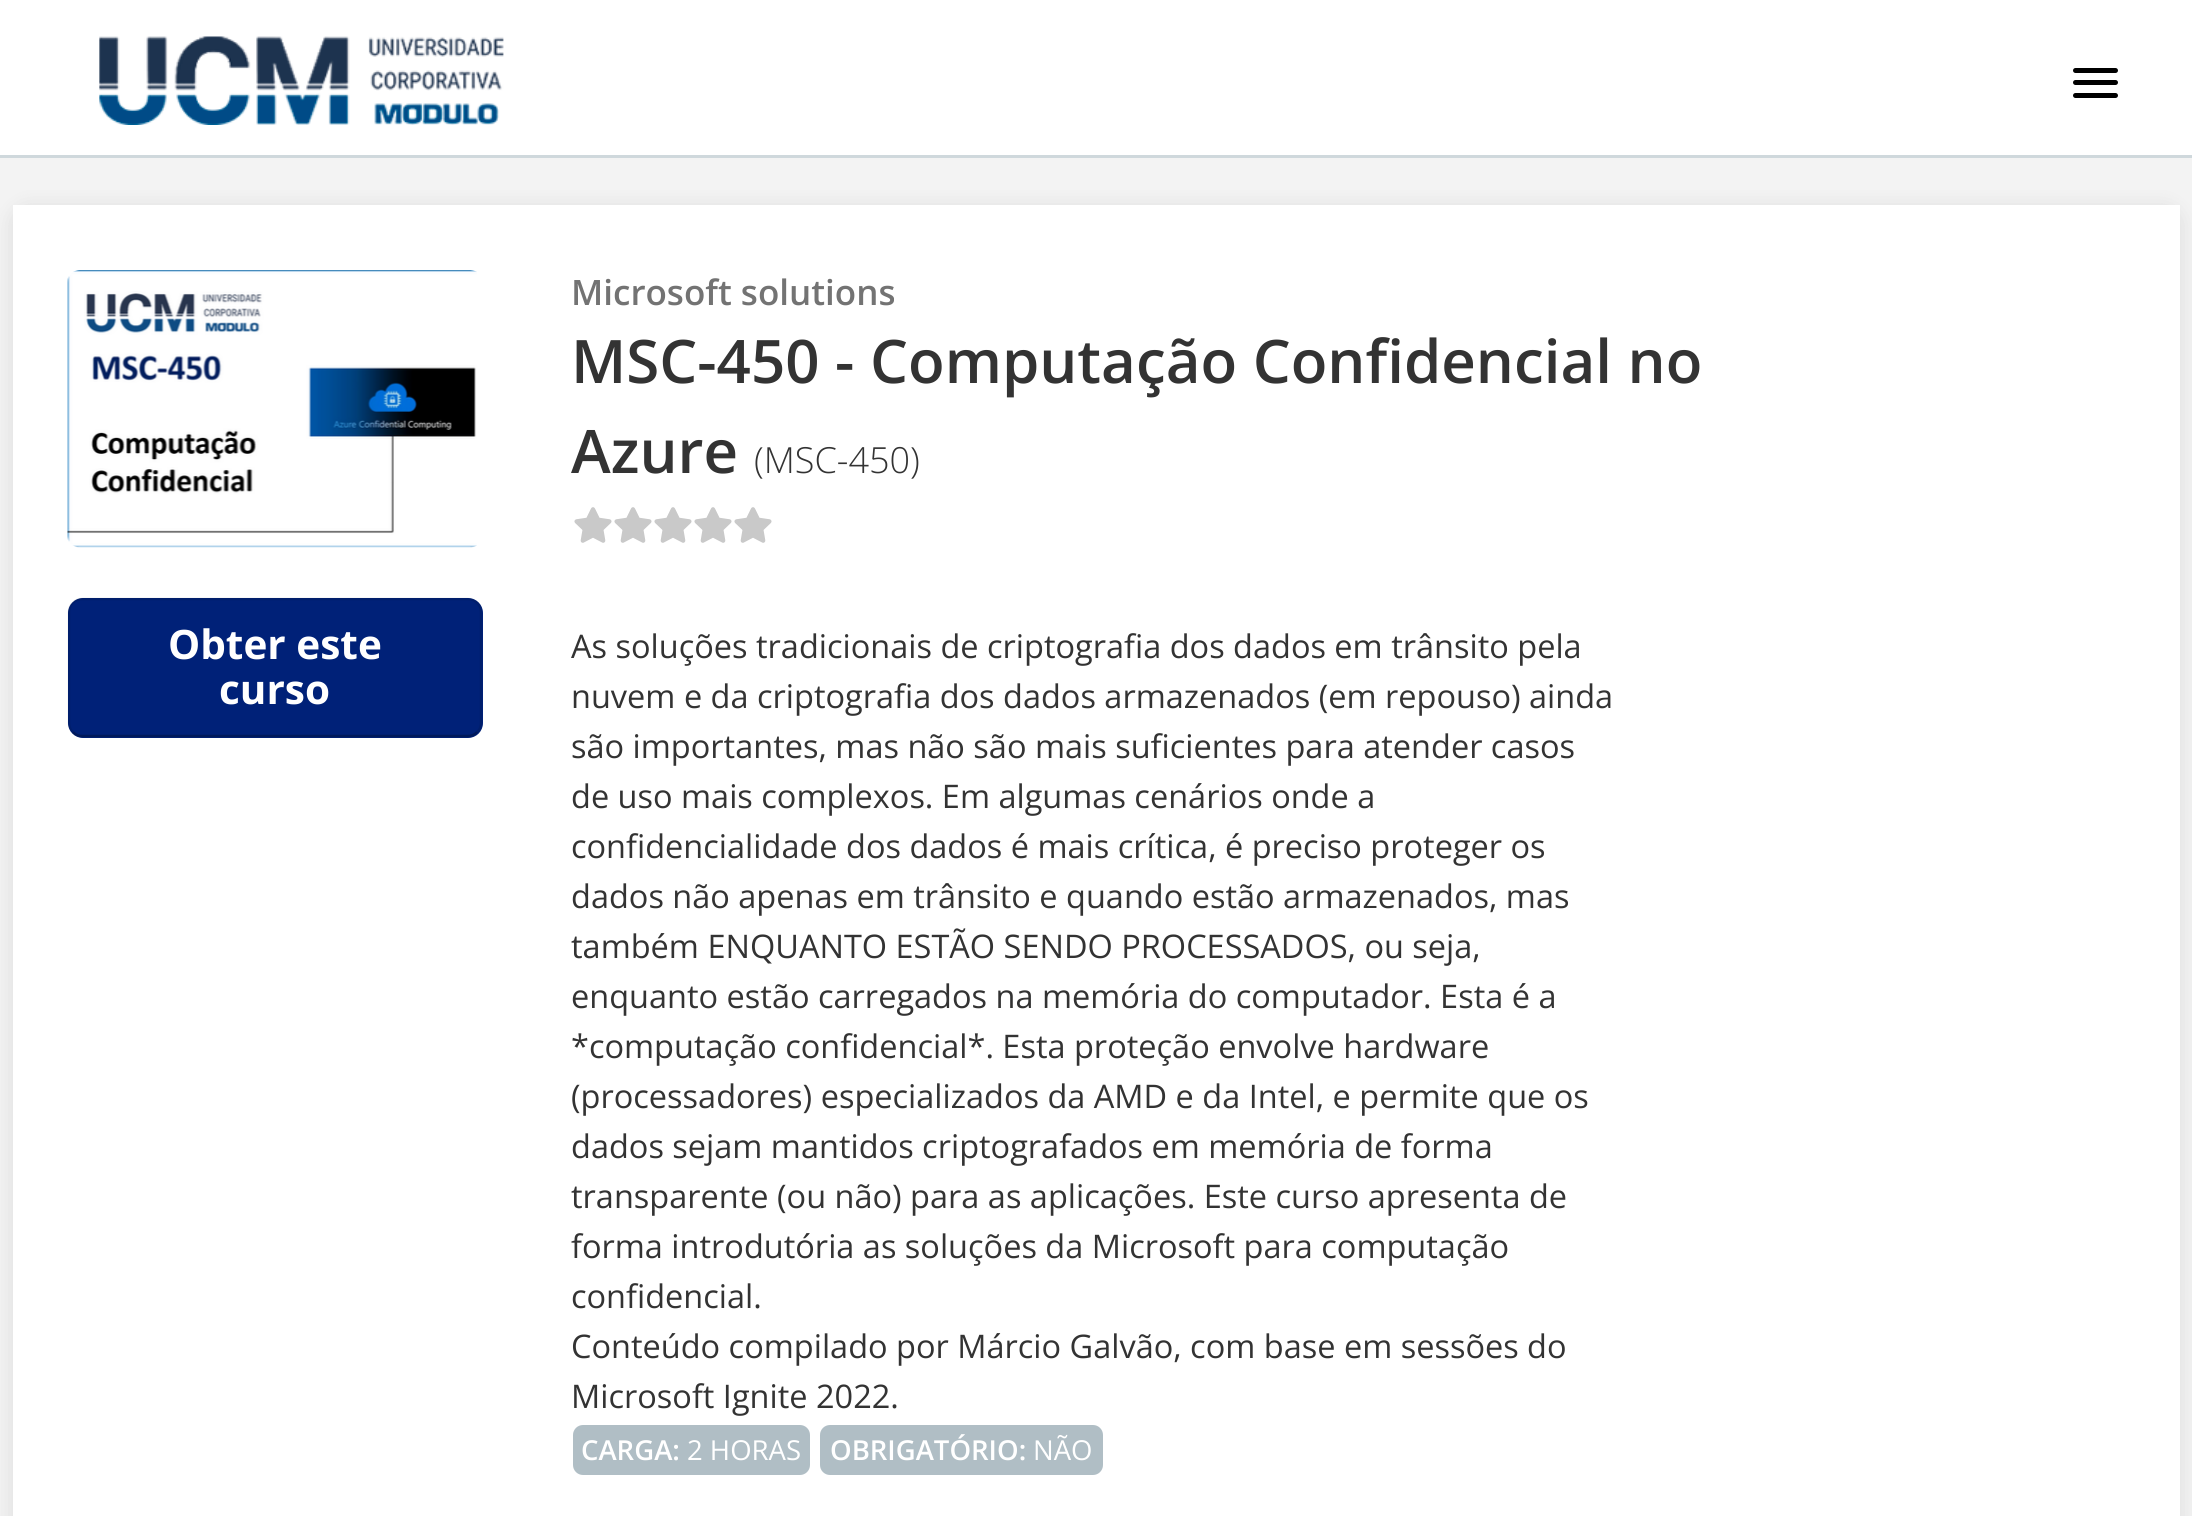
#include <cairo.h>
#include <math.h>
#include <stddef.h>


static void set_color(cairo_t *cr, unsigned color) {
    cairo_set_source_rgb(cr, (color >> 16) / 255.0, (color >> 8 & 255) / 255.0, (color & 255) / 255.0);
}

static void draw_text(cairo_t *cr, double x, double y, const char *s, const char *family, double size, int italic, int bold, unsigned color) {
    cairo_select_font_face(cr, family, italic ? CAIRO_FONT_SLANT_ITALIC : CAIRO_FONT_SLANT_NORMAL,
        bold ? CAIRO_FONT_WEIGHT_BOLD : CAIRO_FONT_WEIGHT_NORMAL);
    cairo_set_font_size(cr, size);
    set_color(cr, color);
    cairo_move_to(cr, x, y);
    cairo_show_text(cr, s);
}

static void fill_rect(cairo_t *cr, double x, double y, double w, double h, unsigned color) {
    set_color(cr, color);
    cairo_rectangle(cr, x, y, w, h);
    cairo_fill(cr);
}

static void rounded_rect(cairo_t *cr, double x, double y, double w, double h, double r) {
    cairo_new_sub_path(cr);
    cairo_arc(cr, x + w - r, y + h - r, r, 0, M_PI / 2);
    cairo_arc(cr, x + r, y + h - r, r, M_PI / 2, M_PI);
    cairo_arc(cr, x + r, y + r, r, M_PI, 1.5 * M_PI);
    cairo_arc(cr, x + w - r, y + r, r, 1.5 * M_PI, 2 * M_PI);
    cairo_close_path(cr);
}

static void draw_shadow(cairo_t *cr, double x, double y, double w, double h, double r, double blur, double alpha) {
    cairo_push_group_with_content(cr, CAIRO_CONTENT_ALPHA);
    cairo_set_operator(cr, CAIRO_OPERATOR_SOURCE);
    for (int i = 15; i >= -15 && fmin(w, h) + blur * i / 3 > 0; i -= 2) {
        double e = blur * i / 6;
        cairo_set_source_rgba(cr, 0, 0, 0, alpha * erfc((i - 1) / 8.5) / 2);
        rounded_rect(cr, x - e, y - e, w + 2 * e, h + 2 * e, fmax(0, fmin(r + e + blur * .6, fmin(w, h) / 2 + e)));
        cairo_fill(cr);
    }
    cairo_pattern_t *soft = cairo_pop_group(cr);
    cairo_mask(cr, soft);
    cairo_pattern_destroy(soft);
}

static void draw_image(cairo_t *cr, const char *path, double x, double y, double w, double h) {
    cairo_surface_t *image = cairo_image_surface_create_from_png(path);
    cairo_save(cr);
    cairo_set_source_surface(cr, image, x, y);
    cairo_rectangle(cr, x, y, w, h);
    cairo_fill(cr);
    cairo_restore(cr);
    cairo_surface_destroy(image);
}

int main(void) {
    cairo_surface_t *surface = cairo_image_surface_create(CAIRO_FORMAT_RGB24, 2192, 1516);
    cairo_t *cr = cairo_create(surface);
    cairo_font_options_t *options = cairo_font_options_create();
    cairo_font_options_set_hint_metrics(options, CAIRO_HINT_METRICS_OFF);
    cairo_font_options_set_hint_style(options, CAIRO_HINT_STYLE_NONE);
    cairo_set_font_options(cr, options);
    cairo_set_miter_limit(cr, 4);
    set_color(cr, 0xF3F3F3);
    cairo_paint(cr);
    fill_rect(cr, 0, 0, 2192, 155, 0xFFFFFF);
    fill_rect(cr, 0, 155, 2192, 3, 0xCFD8DC);
    draw_image(cr, "assets/img1.png", 99, 36, 405, 89);
    set_color(cr, 0x000000);
    rounded_rect(cr, 2073, 68, 45, 5, 2.5);
    cairo_fill(cr);
    rounded_rect(cr, 2073, 80, 45, 5, 2.5);
    cairo_fill(cr);
    rounded_rect(cr, 2073, 93, 45, 5, 2.5);
    cairo_fill(cr);
    set_color(cr, 0x000000);
    draw_shadow(cr, 13, 208, 2167, 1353, 15, 10, 0.1);
    fill_rect(cr, 13, 205, 2167, 1311, 0xFFFFFF);
    draw_image(cr, "assets/img2.png", 67, 270, 410, 278);
    set_color(cr, 0x002178);
    rounded_rect(cr, 68, 598, 415, 140, 15);
    cairo_fill(cr);
    cairo_new_path(cr);
    cairo_move_to(cr, 477, 732);
    cairo_curve_to(cr, 474.5, 735, 471, 736, 467.5, 736);
    cairo_line_to(cr, 82.5, 736);
    cairo_curve_to(cr, 79, 736, 75.5, 735, 73, 732);
    cairo_set_source_rgba(cr, 0, 0, 0, 0.25);
    cairo_set_line_width(cr, 2.5);
    cairo_stroke(cr);
    cairo_new_path(cr);
    cairo_move_to(cr, 73, 732);
    cairo_curve_to(cr, 70, 729.5, 69, 726, 69, 722.5);
    cairo_line_to(cr, 69, 612.5);
    cairo_curve_to(cr, 69, 609, 70, 605.5, 73, 603);
    cairo_curve_to(cr, 75.5, 600, 79, 599, 82.5, 599);
    cairo_line_to(cr, 467.5, 599);
    cairo_curve_to(cr, 471, 599, 474.5, 600, 477, 603);
    cairo_curve_to(cr, 480, 605.5, 481, 609, 481, 612.5);
    cairo_line_to(cr, 481, 722.5);
    cairo_curve_to(cr, 481, 726, 480, 729.5, 477, 732);
    cairo_set_source_rgba(cr, 0, 0, 0, 0.1);
    cairo_stroke(cr);
    draw_text(cr, 168, 659, "Obter este", "Open Sans", 40.5, 0, 1, 0xFFFFFF);
    draw_text(cr, 219, 704, "curso", "Open Sans", 40.5, 0, 1, 0xFFFFFF);
    draw_text(cr, 571, 305, "Microsoft solutions", "Open Sans SemiBold", 35, 0, 0, 0x737373);
    draw_text(cr, 571, 383, "MSC-450 - Computação Confidencial no", "Open Sans SemiBold", 60, 0, 0, 0x333333);
    draw_text(cr, 571, 473, "Azure", "Open Sans SemiBold", 60, 0, 0, 0x333333);
    draw_text(cr, 754, 473, "(MSC-450)", "Open Sans Light", 36, 0, 0, 0x333333);
    draw_image(cr, "assets/img3.png", 574, 507, 198, 36);
    draw_text(cr, 571, 658, "As soluções tradicionais de criptografia dos dados em trânsito pela", "Open Sans", 32.5, 0, 0, 0x333333);
    draw_text(cr, 571, 708, "nuvem e da criptografia dos dados armazenados (em repouso) ainda", "Open Sans", 32.5, 0, 0, 0x333333);
    draw_text(cr, 571, 758, "são importantes, mas não são mais suficientes para atender casos", "Open Sans", 32.5, 0, 0, 0x333333);
    draw_text(cr, 571, 808, "de uso mais complexos. Em algumas cenários onde a", "Open Sans", 32.5, 0, 0, 0x333333);
    draw_text(cr, 571, 858, "confidencialidade dos dados é mais crítica, é preciso proteger os", "Open Sans", 32.5, 0, 0, 0x333333);
    draw_text(cr, 571, 908, "dados não apenas em trânsito e quando estão armazenados, mas", "Open Sans", 32.5, 0, 0, 0x333333);
    draw_text(cr, 571, 958, "também ENQUANTO ESTÃO SENDO PROCESSADOS, ou seja,", "Open Sans", 32.5, 0, 0, 0x333333);
    draw_text(cr, 571, 1008, "enquanto estão carregados na memória do computador. Esta é a", "Open Sans", 32.5, 0, 0, 0x333333);
    draw_text(cr, 571, 1058, "*computação confidencial*. Esta proteção envolve hardware", "Open Sans", 32.5, 0, 0, 0x333333);
    draw_text(cr, 571, 1108, "(processadores) especializados da AMD e da Intel, e permite que os", "Open Sans", 32.5, 0, 0, 0x333333);
    draw_text(cr, 571, 1158, "dados sejam mantidos criptografados em memória de forma", "Open Sans", 32.5, 0, 0, 0x333333);
    draw_text(cr, 571, 1208, "transparente (ou não) para as aplicações. Este curso apresenta de", "Open Sans", 32.5, 0, 0, 0x333333);
    draw_text(cr, 571, 1258, "forma introdutória as soluções da Microsoft para computação", "Open Sans", 32.5, 0, 0, 0x333333);
    draw_text(cr, 571, 1308, "confidencial.", "Open Sans", 32.5, 0, 0, 0x333333);
    draw_text(cr, 571, 1358, "Conteúdo compilado por Márcio Galvão, com base em sessões do", "Open Sans", 32.5, 0, 0, 0x333333);
    draw_text(cr, 571, 1408, "Microsoft Ignite 2022.", "Open Sans", 32.5, 0, 0, 0x333333);
    set_color(cr, 0xB0BEC5);
    rounded_rect(cr, 573, 1425, 237, 50, 10);
    cairo_fill(cr);
    draw_text(cr, 581, 1460, "CARGA:", "Open Sans SemiBold", 27.5, 0, 0, 0xFFFFFF);
    draw_text(cr, 687, 1460, "2 HORAS", "Open Sans", 27.5, 0, 0, 0xFFFFFF);
    set_color(cr, 0xB0BEC5);
    rounded_rect(cr, 820, 1425, 283, 50, 10);
    cairo_fill(cr);
    draw_text(cr, 830, 1460, "OBRIGATÓRIO:", "Open Sans SemiBold", 27.5, 0, 0, 0xFFFFFF);
    draw_text(cr, 1033, 1460, "NÃO", "Open Sans", 27.5, 0, 0, 0xFFFFFF);
    cairo_surface_write_to_png(surface, "output.png");
    cairo_font_options_destroy(options);
    cairo_destroy(cr);
    cairo_surface_destroy(surface);
    return 0;
}
